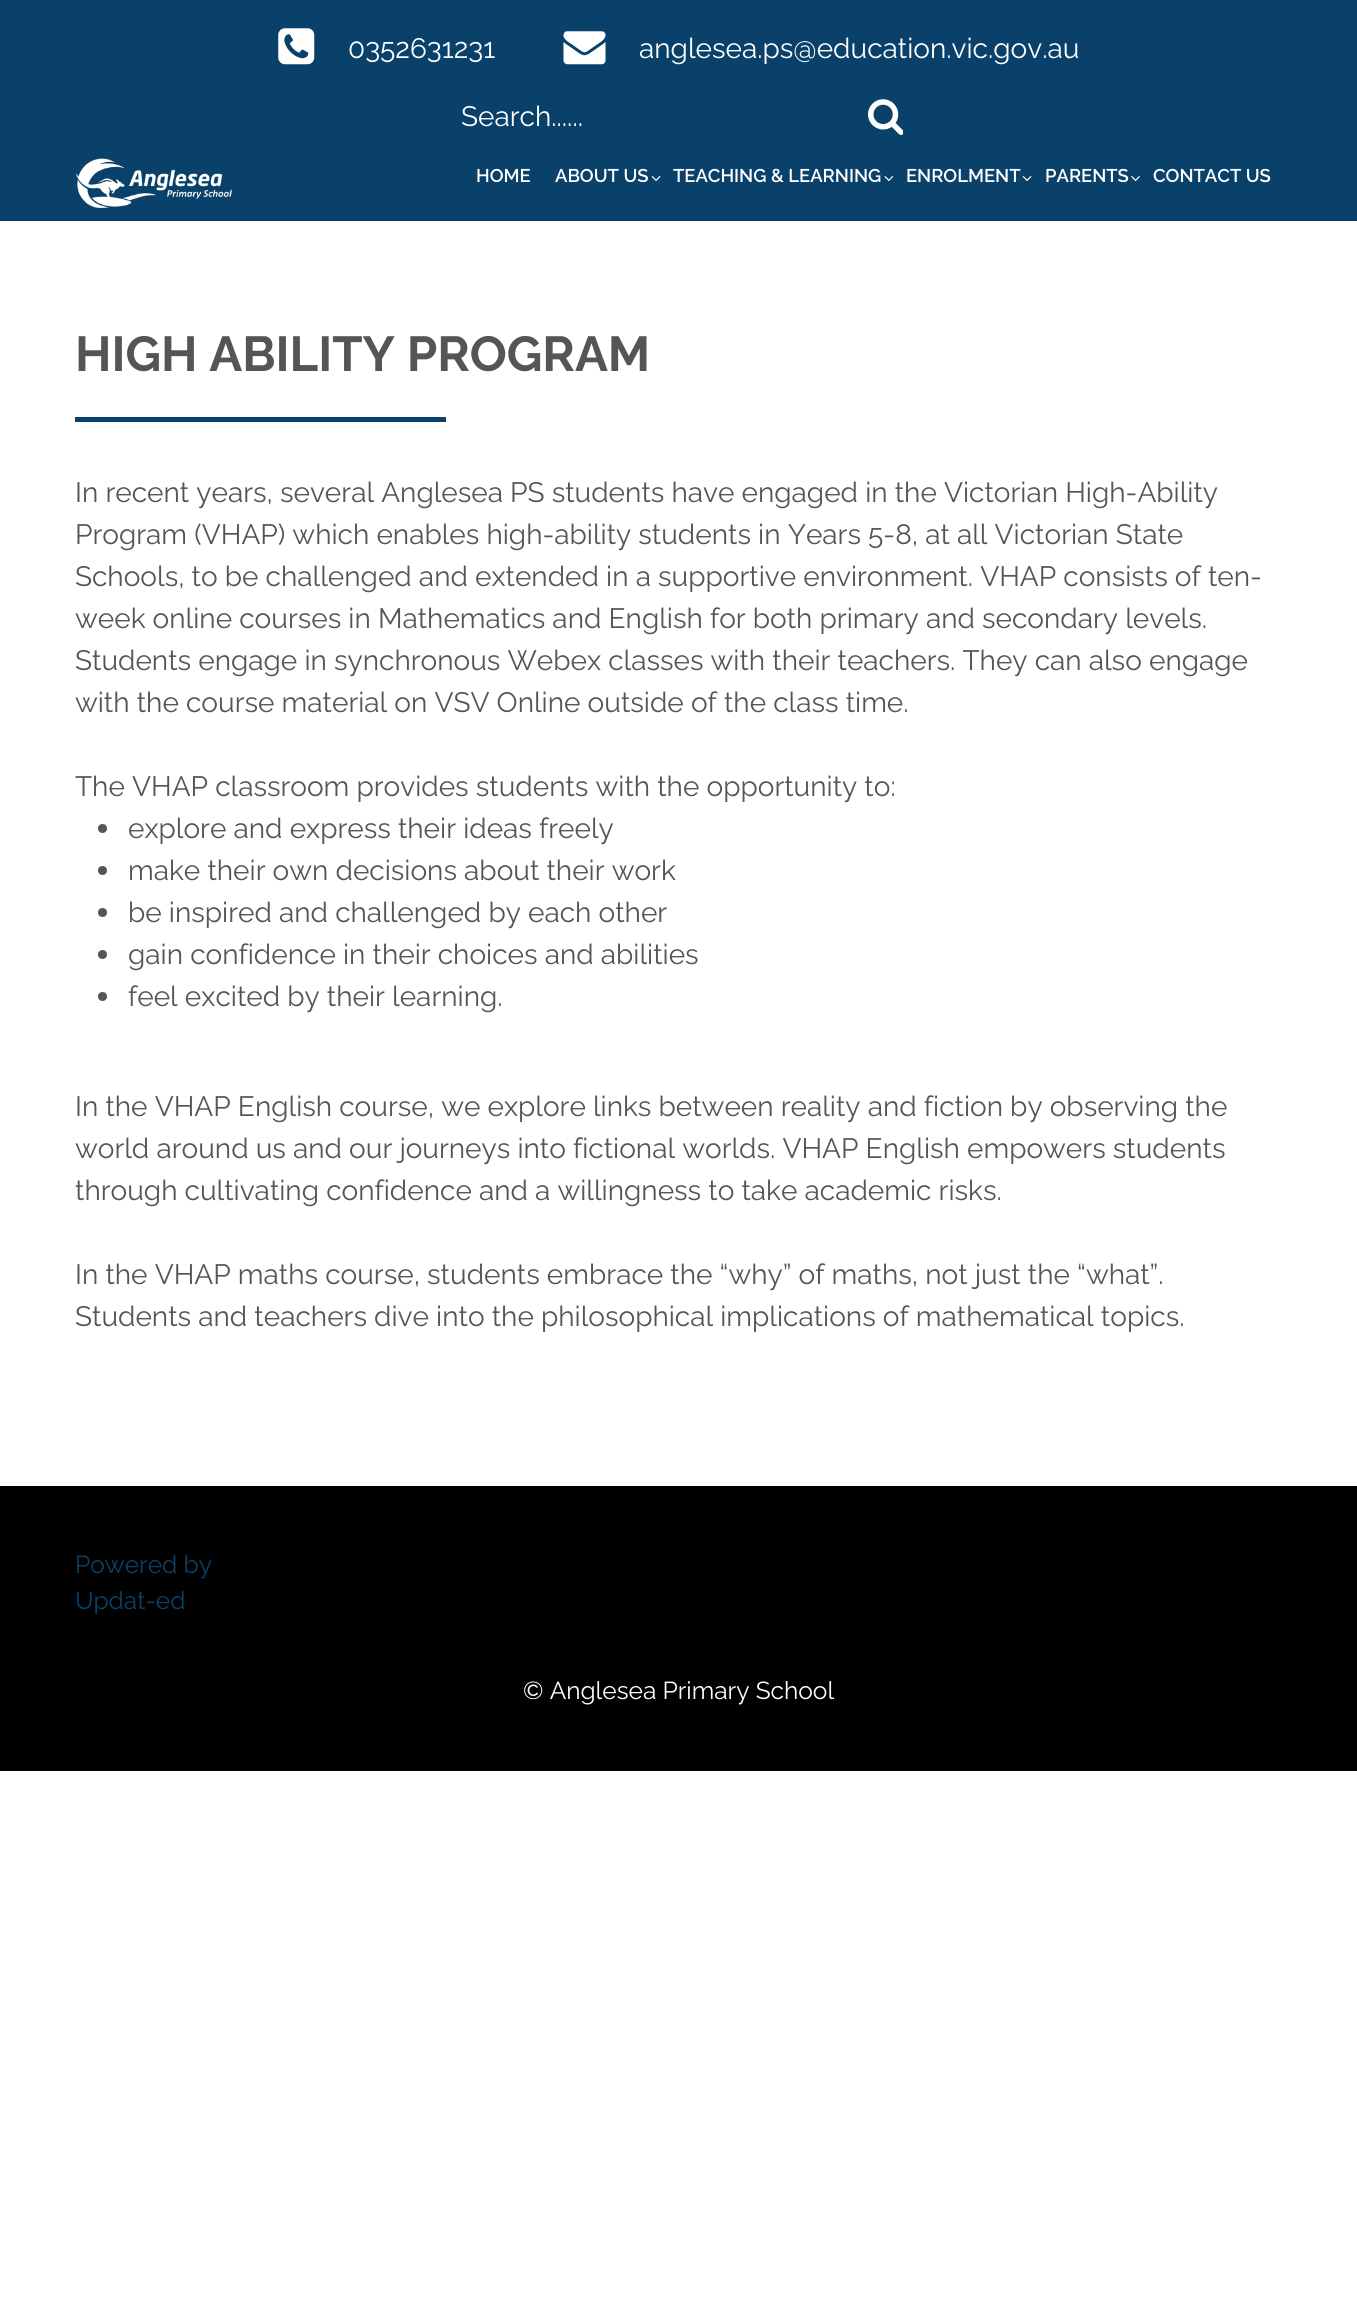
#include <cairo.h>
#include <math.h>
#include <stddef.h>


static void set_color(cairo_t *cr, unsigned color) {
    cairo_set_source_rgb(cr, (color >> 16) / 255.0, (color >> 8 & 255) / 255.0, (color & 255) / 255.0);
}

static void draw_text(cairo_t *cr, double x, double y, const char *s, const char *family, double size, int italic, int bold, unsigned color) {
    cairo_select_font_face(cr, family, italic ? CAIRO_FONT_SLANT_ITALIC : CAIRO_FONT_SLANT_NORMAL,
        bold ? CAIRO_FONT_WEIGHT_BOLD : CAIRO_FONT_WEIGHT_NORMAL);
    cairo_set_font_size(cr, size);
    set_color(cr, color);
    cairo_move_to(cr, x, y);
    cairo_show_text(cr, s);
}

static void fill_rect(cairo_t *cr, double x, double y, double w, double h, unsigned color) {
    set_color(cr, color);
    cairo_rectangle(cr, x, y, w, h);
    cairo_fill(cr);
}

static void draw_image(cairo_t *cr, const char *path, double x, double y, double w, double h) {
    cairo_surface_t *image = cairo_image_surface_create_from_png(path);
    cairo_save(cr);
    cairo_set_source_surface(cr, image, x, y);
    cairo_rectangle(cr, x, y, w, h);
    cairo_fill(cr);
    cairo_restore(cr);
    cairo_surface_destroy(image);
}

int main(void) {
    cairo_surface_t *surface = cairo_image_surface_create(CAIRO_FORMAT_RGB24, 1357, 2297);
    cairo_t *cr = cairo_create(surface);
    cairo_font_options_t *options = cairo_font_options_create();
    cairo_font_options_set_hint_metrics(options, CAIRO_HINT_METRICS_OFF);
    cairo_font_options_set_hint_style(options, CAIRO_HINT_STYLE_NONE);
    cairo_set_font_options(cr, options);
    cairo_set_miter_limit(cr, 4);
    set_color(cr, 0xFFFFFF);
    cairo_paint(cr);
    fill_rect(cr, 0, 0, 1357, 221, 0x0A416A);
    draw_image(cr, "assets/img1.png", 278, 28, 37, 37);
    draw_text(cr, 348, 58, "0352631231", "Raleway", 28, 0, 0, 0xFFFFFF);
    draw_image(cr, "assets/img2.png", 563, 31, 43, 34);
    draw_text(cr, 639, 58, "anglesea.ps@education.vic.gov.au", "Raleway", 28, 0, 0, 0xFFFFFF);
    draw_text(cr, 461, 126, "Search......", "Raleway", 28, 0, 0, 0xFFFFFF);
    draw_image(cr, "assets/img3.png", 868, 99, 35, 36);
    draw_image(cr, "assets/img4.png", 76, 158, 156, 50);
    draw_text(cr, 476, 182, "HOME", "Raleway SemiBold", 18.4, 0, 0, 0xFFFFFF);
    draw_text(cr, 555, 182, "ABOUT US", "Raleway SemiBold", 18.4, 0, 0, 0xFFFFFF);
    draw_image(cr, "assets/img5.png", 651, 176, 10, 5);
    draw_text(cr, 673, 182, "TEACHING & LEARNING", "Raleway SemiBold", 18.4, 0, 0, 0xFFFFFF);
    draw_image(cr, "assets/img6.png", 884, 176, 10, 6);
    draw_text(cr, 906, 182, "ENROLMENT", "Raleway SemiBold", 18.4, 0, 0, 0xFFFFFF);
    draw_image(cr, "assets/img5.png", 1022, 176, 10, 5);
    draw_text(cr, 1045, 182, "PARENTS", "Raleway SemiBold", 18.4, 0, 0, 0xFFFFFF);
    draw_image(cr, "assets/img7.png", 1131, 176, 9, 6);
    draw_text(cr, 1153, 182, "CONTACT US", "Raleway SemiBold", 18.4, 0, 0, 0xFFFFFF);
    draw_text(cr, 75, 371, "HIGH ABILITY PROGRAM", "Raleway", 49, 0, 1, 0x555555);
    fill_rect(cr, 75, 417, 371, 5, 0x0A416A);
    draw_text(cr, 75, 502, "In recent years, several Anglesea PS students have engaged in the Victorian High-Ability", "Raleway", 28, 0, 0, 0x555555);
    draw_text(cr, 75, 544, "Program (VHAP) which enables high-ability students in Years 5-8, at all Victorian State", "Raleway", 28, 0, 0, 0x555555);
    draw_text(cr, 75, 586, "Schools, to be challenged and extended in a supportive environment. VHAP consists of ten-", "Raleway", 28, 0, 0, 0x555555);
    draw_text(cr, 75, 628, "week online courses in Mathematics and English for both primary and secondary levels.", "Raleway", 28, 0, 0, 0x555555);
    draw_text(cr, 75, 670, "Students engage in synchronous Webex classes with their teachers. They can also engage", "Raleway", 28, 0, 0, 0x555555);
    draw_text(cr, 75, 712, "with the course material on VSV Online outside of the class time.", "Raleway", 28, 0, 0, 0x555555);
    draw_text(cr, 75, 796, "The VHAP classroom provides students with the opportunity to:", "Raleway", 28, 0, 0, 0x555555);
    cairo_new_path(cr);
    cairo_arc(cr, 102.5, 828.5, 4.5, 0, 2 * M_PI);
    cairo_fill(cr);
    draw_text(cr, 128, 838, "explore and express their ideas freely", "Raleway", 28, 0, 0, 0x555555);
    cairo_new_path(cr);
    cairo_arc(cr, 102.5, 870.5, 4.5, 0, 2 * M_PI);
    cairo_fill(cr);
    draw_text(cr, 128, 880, "make their own decisions about their work", "Raleway", 28, 0, 0, 0x555555);
    cairo_new_path(cr);
    cairo_arc(cr, 102.5, 912.5, 4.5, 0, 2 * M_PI);
    cairo_fill(cr);
    draw_text(cr, 128, 922, "be inspired and challenged by each other", "Raleway", 28, 0, 0, 0x555555);
    cairo_new_path(cr);
    cairo_arc(cr, 102.5, 954.5, 4.5, 0, 2 * M_PI);
    cairo_fill(cr);
    draw_text(cr, 128, 964, "gain confidence in their choices and abilities", "Raleway", 28, 0, 0, 0x555555);
    cairo_new_path(cr);
    cairo_arc(cr, 102.5, 996.5, 4.5, 0, 2 * M_PI);
    cairo_fill(cr);
    draw_text(cr, 128, 1006, "feel excited by their learning.", "Raleway", 28, 0, 0, 0x555555);
    draw_text(cr, 75, 1116, "In the VHAP English course, we explore links between reality and fiction by observing the", "Raleway", 28, 0, 0, 0x555555);
    draw_text(cr, 75, 1158, "world around us and our journeys into fictional worlds. VHAP English empowers students", "Raleway", 28, 0, 0, 0x555555);
    draw_text(cr, 75, 1200, "through cultivating confidence and a willingness to take academic risks.", "Raleway", 28, 0, 0, 0x555555);
    draw_text(cr, 75, 1284, "In the VHAP maths course, students embrace the “why” of maths, not just the “what”.", "Raleway", 28, 0, 0, 0x555555);
    draw_text(cr, 75, 1326, "Students and teachers dive into the philosophical implications of mathematical topics.", "Raleway", 28, 0, 0, 0x555555);
    fill_rect(cr, 0, 1486, 1357, 285, 0x000000);
    draw_text(cr, 75, 1573, "Powered by", "Raleway", 24.5, 0, 0, 0x0A416A);
    draw_text(cr, 75, 1609, "Updat-ed", "Raleway", 24.5, 0, 0, 0x0A416A);
    draw_text(cr, 523, 1699, "© Anglesea Primary School", "Raleway", 24.5, 0, 0, 0xFFFFFF);
    cairo_surface_write_to_png(surface, "output.png");
    cairo_font_options_destroy(options);
    cairo_destroy(cr);
    cairo_surface_destroy(surface);
    return 0;
}
